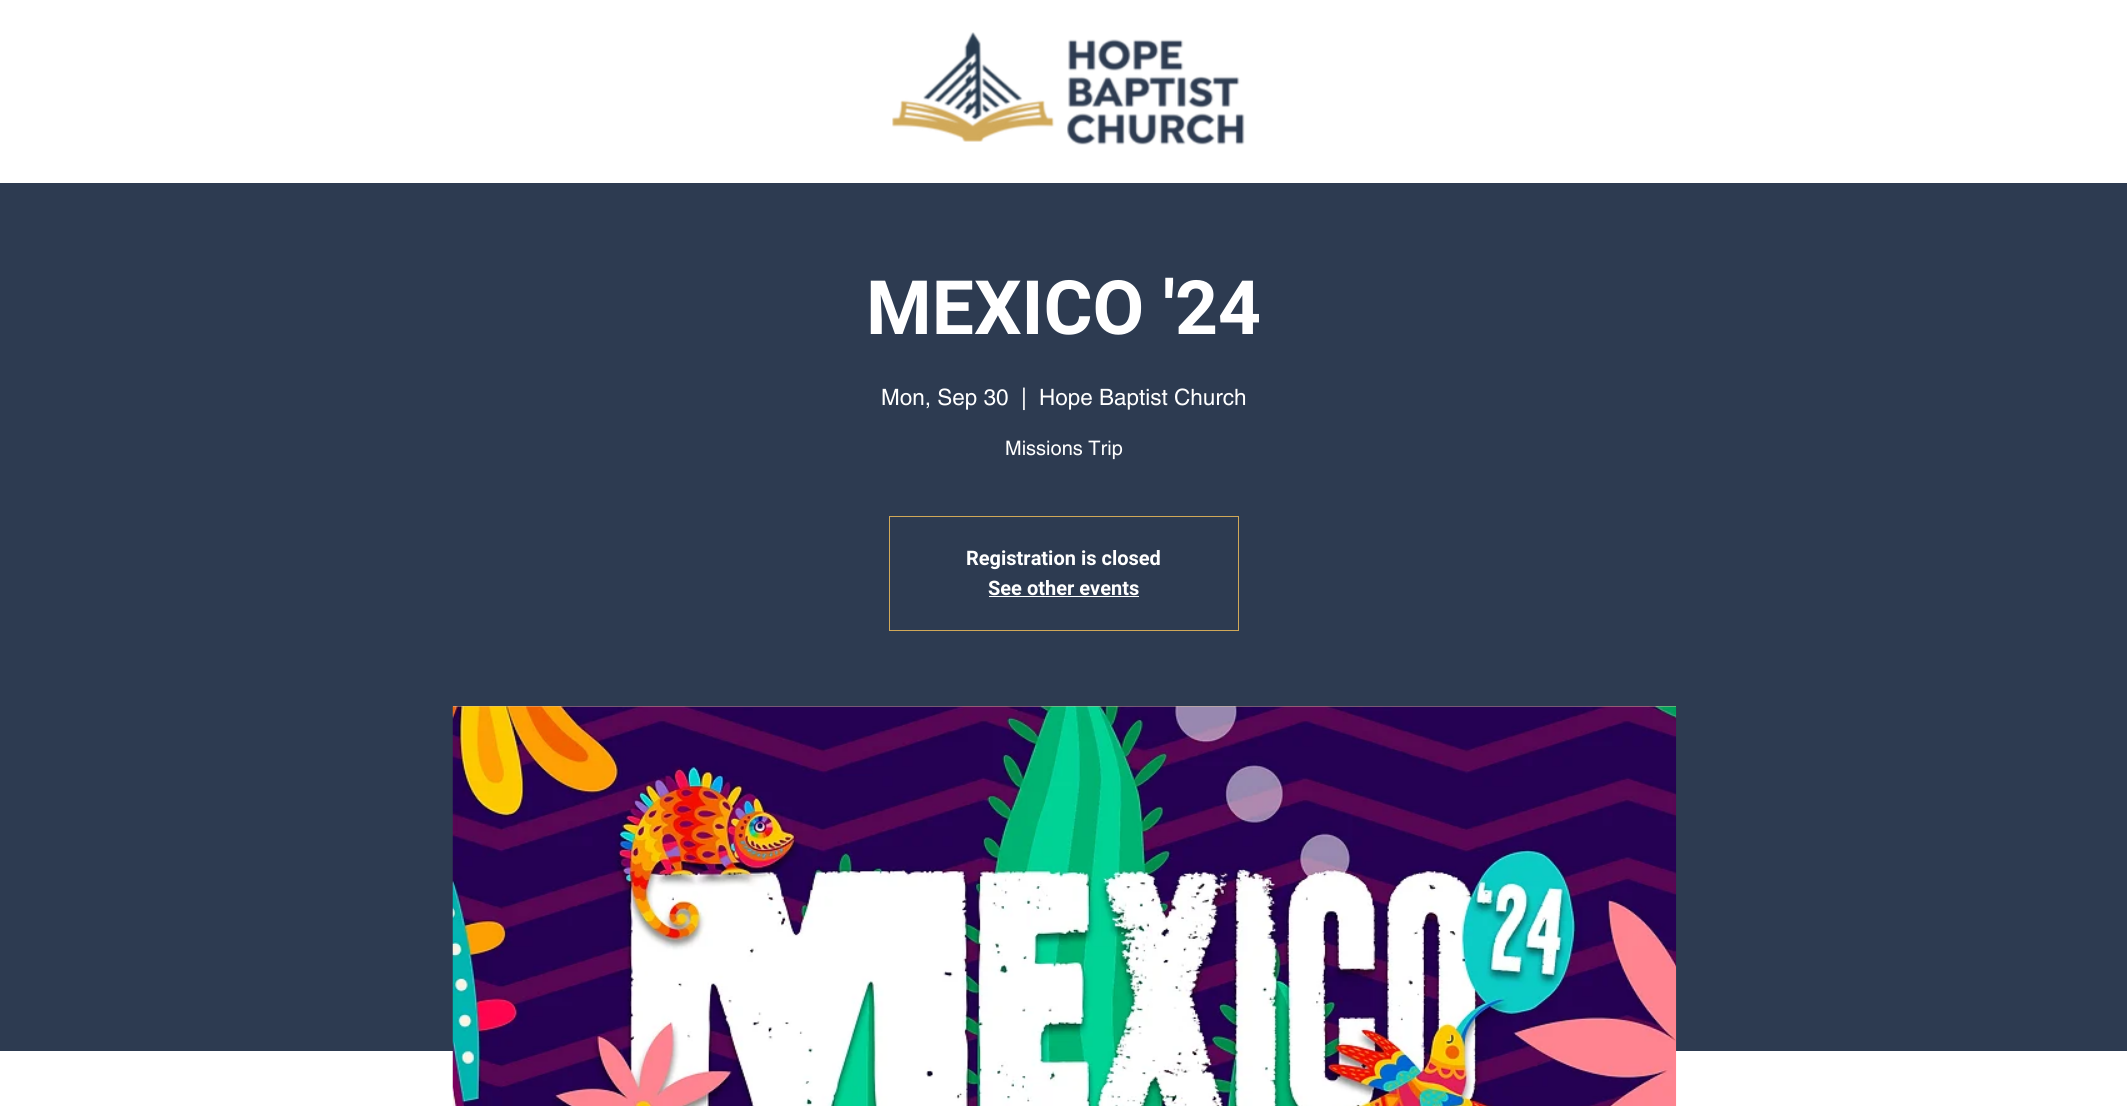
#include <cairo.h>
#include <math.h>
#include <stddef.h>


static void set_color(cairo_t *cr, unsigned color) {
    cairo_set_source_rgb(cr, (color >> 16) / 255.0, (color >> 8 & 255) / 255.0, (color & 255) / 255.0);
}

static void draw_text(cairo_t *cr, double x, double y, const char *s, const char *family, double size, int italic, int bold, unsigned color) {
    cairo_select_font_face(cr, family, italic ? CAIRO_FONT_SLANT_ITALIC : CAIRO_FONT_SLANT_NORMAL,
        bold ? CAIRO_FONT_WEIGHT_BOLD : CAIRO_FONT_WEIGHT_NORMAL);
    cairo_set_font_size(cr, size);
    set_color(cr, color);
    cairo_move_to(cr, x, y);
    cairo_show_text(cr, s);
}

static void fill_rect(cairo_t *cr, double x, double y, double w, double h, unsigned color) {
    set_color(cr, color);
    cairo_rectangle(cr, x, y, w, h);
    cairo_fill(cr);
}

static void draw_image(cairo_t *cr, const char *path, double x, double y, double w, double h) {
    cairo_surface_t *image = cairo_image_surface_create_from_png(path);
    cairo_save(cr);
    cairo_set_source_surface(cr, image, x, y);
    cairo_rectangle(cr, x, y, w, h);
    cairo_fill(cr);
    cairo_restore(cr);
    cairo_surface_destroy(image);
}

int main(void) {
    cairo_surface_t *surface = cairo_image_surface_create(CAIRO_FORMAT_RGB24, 2127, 1106);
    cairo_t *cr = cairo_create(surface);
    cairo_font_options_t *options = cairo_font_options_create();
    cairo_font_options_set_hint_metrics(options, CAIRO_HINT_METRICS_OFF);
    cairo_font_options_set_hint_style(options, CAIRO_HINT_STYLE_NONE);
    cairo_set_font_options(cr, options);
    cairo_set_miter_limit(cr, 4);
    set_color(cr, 0xFFFFFF);
    cairo_paint(cr);
    draw_image(cr, "assets/img1.png", 892, 32, 163, 110);
    draw_image(cr, "assets/img2.png", 1067, 39, 178, 106);
    fill_rect(cr, 0, 183, 2127, 868, 0x2D3B51);
    draw_text(cr, 866, 334, "MEXICO '24", "Roboto", 75, 0, 1, 0xFFFFFF);
    draw_text(cr, 881, 405, "Mon, Sep 30", "helvetica", 22.5, 0, 0, 0xFFFFFF);
    draw_text(cr, 1021, 405, "|", "helvetica", 22.5, 0, 0, 0xFFFFFF);
    draw_text(cr, 1039, 405, "Hope Baptist Church", "helvetica", 22.5, 0, 0, 0xFFFFFF);
    draw_text(cr, 1005, 455, "Missions Trip", "helvetica", 20, 0, 0, 0xFFFFFF);
    cairo_rectangle(cr, 889.5, 516.5, 349, 114);
    set_color(cr, 0xD0A858);
    cairo_set_line_width(cr, 1);
    cairo_stroke(cr);
    draw_text(cr, 966, 565, "Registration is closed", "Roboto", 20, 0, 1, 0xFFFFFF);
    draw_text(cr, 988, 595, "See other events", "Roboto", 20, 0, 1, 0xFFFFFF);
    fill_rect(cr, 989, 596, 150, 1, 0xFFFFFF);
    fill_rect(cr, 453, 706, 1223, 1, 0xE0CA9F);
    draw_image(cr, "assets/img3.png", 452, 706, 1225, 400);
    cairo_surface_write_to_png(surface, "output.png");
    cairo_font_options_destroy(options);
    cairo_destroy(cr);
    cairo_surface_destroy(surface);
    return 0;
}
